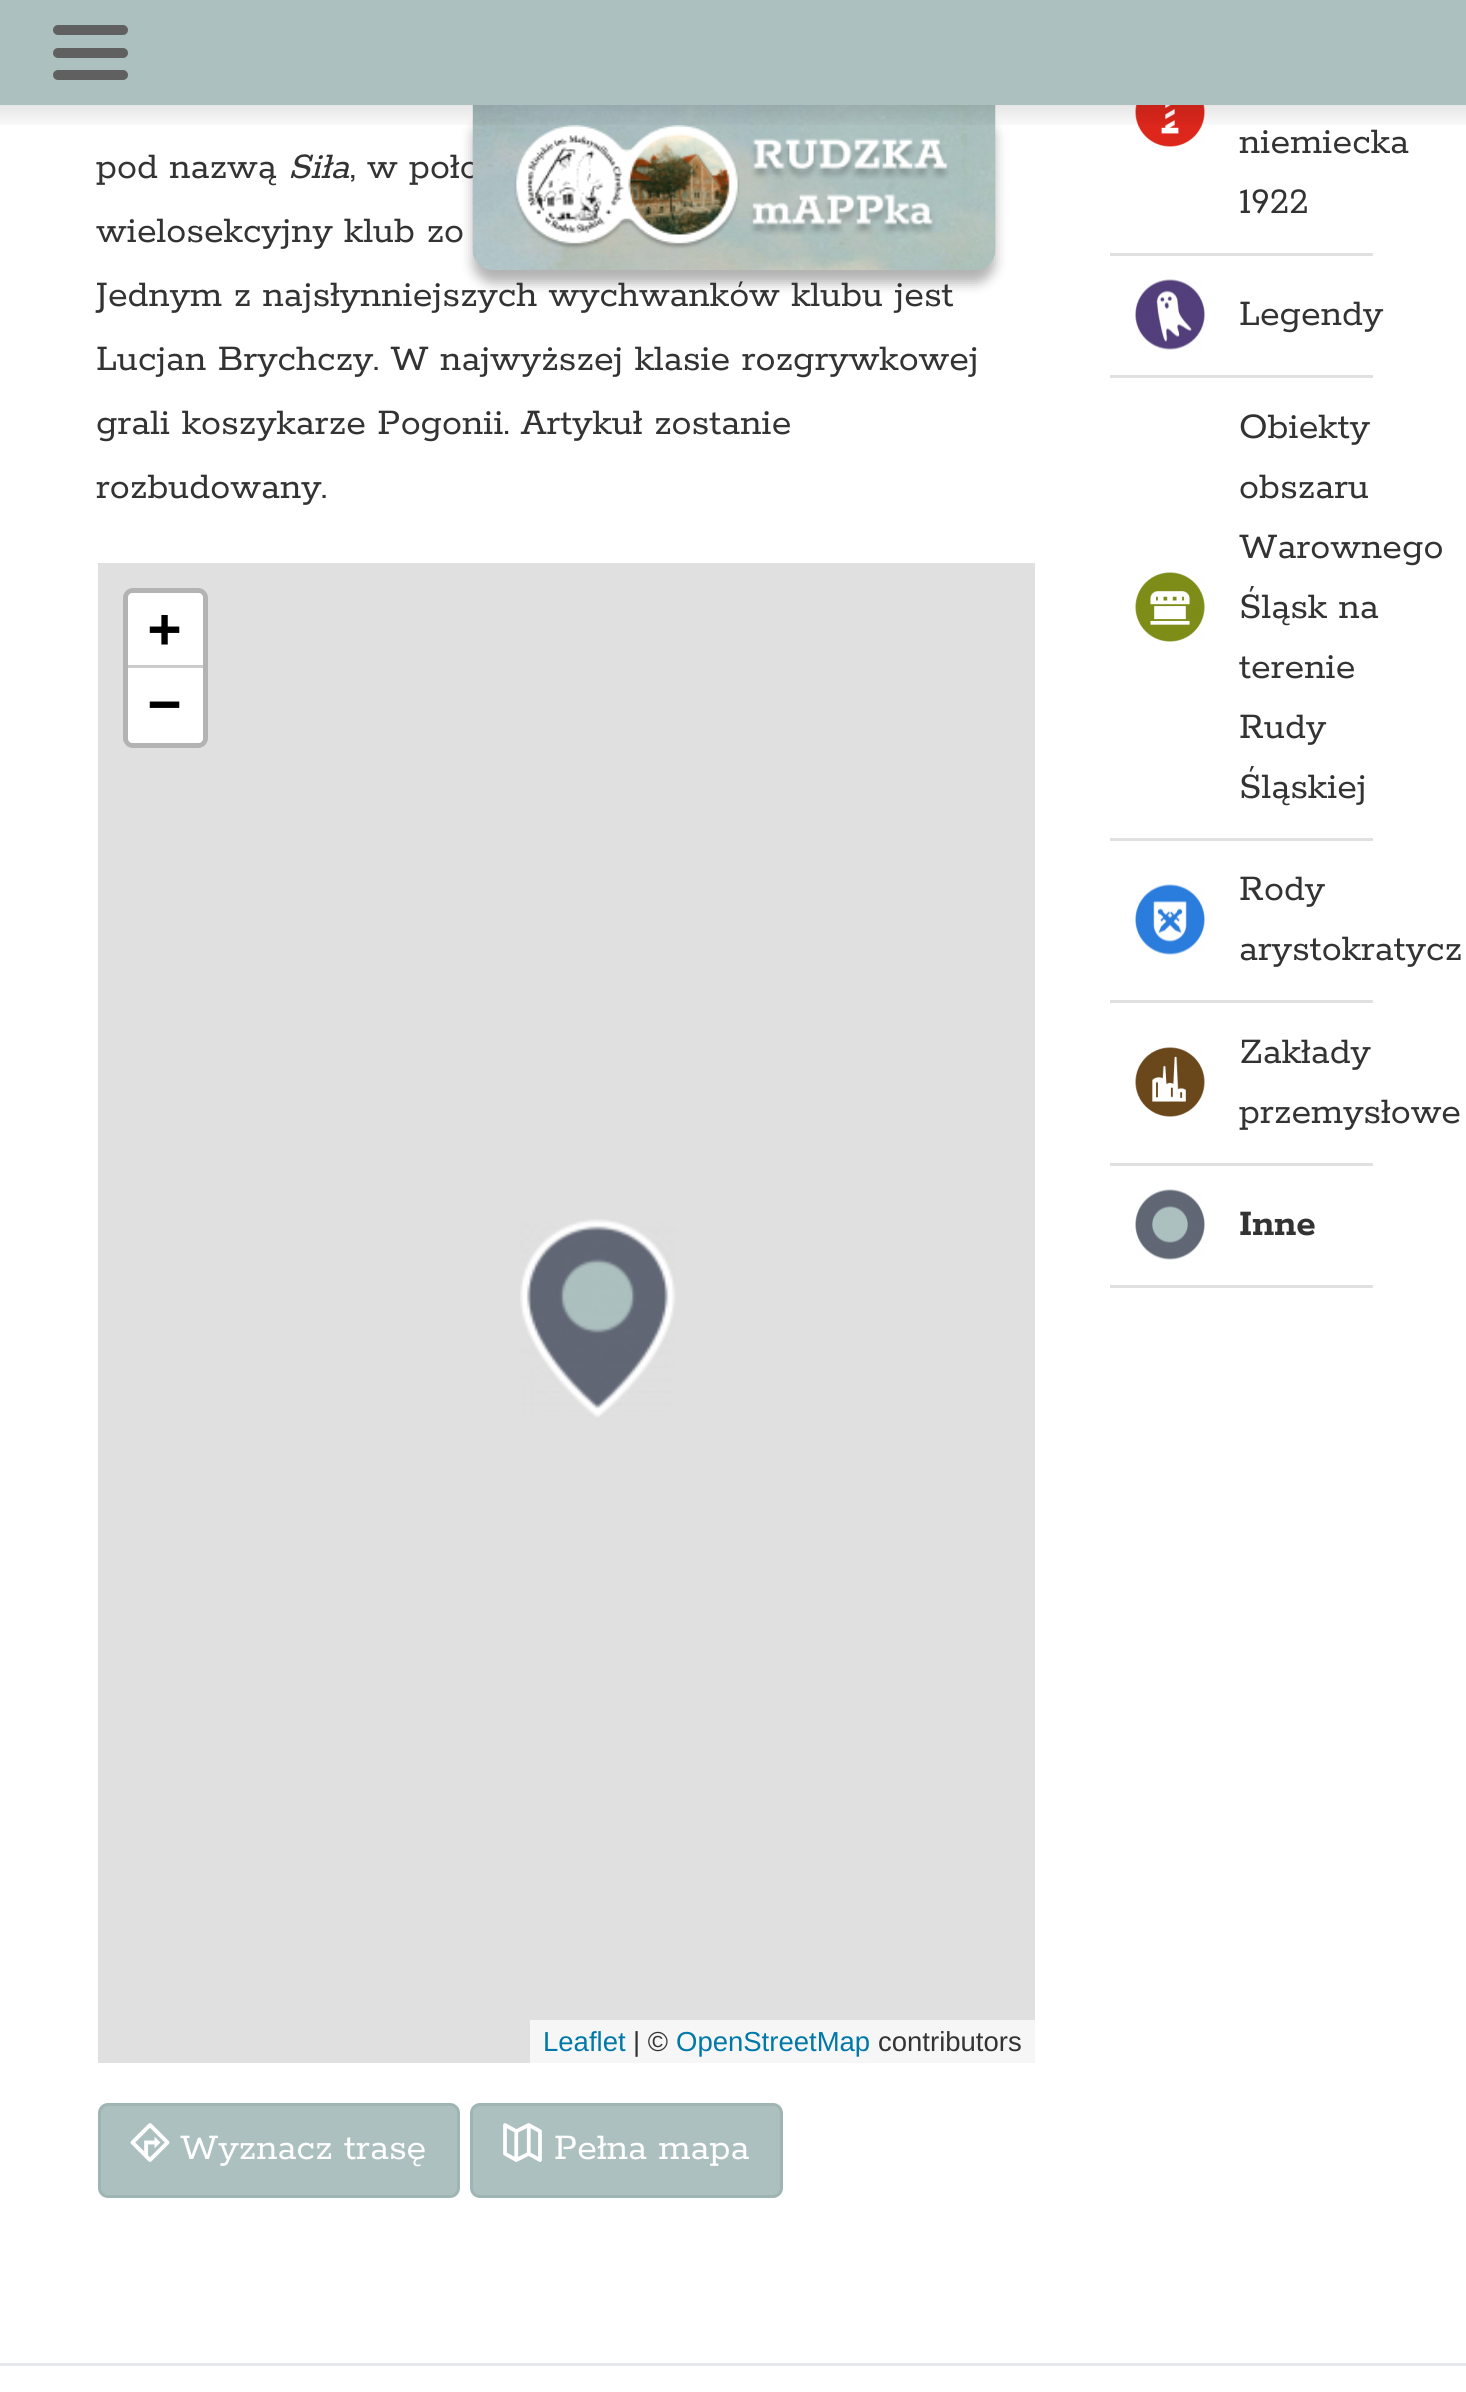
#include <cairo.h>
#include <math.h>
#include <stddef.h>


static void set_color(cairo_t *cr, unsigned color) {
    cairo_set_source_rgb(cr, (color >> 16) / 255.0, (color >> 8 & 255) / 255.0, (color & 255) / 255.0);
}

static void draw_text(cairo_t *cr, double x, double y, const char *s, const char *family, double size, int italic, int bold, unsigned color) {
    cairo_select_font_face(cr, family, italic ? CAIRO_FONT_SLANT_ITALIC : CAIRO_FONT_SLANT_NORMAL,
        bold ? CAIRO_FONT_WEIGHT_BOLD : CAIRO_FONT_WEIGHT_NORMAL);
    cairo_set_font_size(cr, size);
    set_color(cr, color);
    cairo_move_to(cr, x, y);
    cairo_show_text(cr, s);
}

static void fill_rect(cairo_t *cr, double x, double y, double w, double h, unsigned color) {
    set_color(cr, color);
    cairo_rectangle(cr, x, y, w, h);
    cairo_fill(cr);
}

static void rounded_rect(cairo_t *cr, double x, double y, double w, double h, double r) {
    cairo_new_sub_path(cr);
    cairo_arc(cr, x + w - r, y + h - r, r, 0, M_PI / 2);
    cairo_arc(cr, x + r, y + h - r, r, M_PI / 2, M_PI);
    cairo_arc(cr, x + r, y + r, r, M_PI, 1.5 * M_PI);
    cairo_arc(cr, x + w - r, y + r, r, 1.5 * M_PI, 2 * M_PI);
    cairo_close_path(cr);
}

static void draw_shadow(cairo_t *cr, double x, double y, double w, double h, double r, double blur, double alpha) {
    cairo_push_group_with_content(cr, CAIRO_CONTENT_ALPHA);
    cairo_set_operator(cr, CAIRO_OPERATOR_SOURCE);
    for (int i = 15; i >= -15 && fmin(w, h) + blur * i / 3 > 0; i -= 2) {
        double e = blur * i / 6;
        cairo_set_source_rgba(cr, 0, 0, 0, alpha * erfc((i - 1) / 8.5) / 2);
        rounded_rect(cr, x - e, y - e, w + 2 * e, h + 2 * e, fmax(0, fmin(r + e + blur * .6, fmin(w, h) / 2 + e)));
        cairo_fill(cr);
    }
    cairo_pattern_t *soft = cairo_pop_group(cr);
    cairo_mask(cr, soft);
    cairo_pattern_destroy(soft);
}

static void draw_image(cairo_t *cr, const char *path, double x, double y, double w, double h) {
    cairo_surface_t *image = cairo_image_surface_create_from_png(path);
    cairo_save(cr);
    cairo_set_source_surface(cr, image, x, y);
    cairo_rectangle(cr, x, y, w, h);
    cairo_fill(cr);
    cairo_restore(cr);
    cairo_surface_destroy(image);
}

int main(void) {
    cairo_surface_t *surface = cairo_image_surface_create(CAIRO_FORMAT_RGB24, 1466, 2392);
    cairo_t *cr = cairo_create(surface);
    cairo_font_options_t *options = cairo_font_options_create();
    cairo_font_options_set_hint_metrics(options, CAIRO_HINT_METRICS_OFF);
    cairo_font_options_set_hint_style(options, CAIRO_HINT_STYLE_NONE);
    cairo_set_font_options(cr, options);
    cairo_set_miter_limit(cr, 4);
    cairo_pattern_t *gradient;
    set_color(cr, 0xFFFFFF);
    cairo_paint(cr);
    fill_rect(cr, 0, 0, 1466, 105, 0xACC0BF);
    set_color(cr, 0x606060);
    rounded_rect(cr, 53, 25, 75, 10, 5);
    cairo_fill(cr);
    rounded_rect(cr, 53, 48, 75, 10, 5);
    cairo_fill(cr);
    rounded_rect(cr, 53, 70, 75, 10, 5);
    cairo_fill(cr);
    set_color(cr, 0x000000);
    draw_shadow(cr, 473, 118, 522, 165, 20, 6, 0.3);
    draw_text(cr, 350, 178, ", w poło", "Rokkitt", 40, 0, 0, 0x333333);
    set_color(cr, 0xACC0BF);
    cairo_new_path(cr);
    cairo_move_to(cr, 473, 105);
    cairo_line_to(cr, 995, 105);
    cairo_line_to(cr, 995, 250);
    cairo_curve_to(cr, 995, 261, 986, 270, 975, 270);
    cairo_line_to(cr, 493, 270);
    cairo_curve_to(cr, 482, 270, 473, 261, 473, 250);
    cairo_close_path(cr);
    cairo_fill(cr);
    draw_image(cr, "assets/img1.png", 472, 105, 524, 165);
    draw_image(cr, "assets/img2.png", 514, 125, 435, 124);
    draw_image(cr, "assets/img6.png", 1135, 105, 70, 42);
    gradient = cairo_pattern_create_linear(734, 105, 734, 130);
    cairo_pattern_add_color_stop_rgba(gradient, 0, 0, 0, 0, 0.1);
    cairo_pattern_add_color_stop_rgba(gradient, 1, 0, 0, 0, 0);
    cairo_set_source(cr, gradient);
    cairo_pattern_destroy(gradient);
    cairo_rectangle(cr, 0, 105, 1466, 20);
    cairo_fill(cr);
    draw_text(cr, 96, 178, "pod nazwą", "Rokkitt", 40, 0, 0, 0x333333);
    draw_text(cr, 288, 178, "Siła", "Rokkitt", 40, 1, 0, 0x333333);
    draw_text(cr, 96, 242, "wielosekcyjny klub zo", "Rokkitt", 40, 0, 0, 0x333333);
    draw_text(cr, 96, 306, "Jednym z najsłynniejszych wychwanków klubu jest", "Rokkitt", 40, 0, 0, 0x333333);
    draw_text(cr, 96, 370, "Lucjan Brychczy. W najwyższej klasie rozgrywkowej", "Rokkitt", 40, 0, 0, 0x333333);
    draw_text(cr, 96, 434, "grali koszykarze Pogonii. Artykuł zostanie", "Rokkitt", 40, 0, 0, 0x333333);
    draw_text(cr, 96, 498, "rozbudowany.", "Rokkitt", 40, 0, 0, 0x333333);
    fill_rect(cr, 98, 563, 937, 1500, 0xE0E0E0);
    rounded_rect(cr, 125.5, 590.5, 80, 155, 7.5);
    set_color(cr, 0xB3B3B3);
    cairo_set_line_width(cr, 5);
    cairo_stroke(cr);
    set_color(cr, 0xFFFFFF);
    cairo_new_path(cr);
    cairo_move_to(cr, 133, 593);
    cairo_line_to(cr, 198, 593);
    cairo_curve_to(cr, 201, 593, 203, 595, 203, 598);
    cairo_line_to(cr, 203, 668);
    cairo_line_to(cr, 128, 668);
    cairo_line_to(cr, 128, 598);
    cairo_curve_to(cr, 128, 595, 130, 593, 133, 593);
    cairo_close_path(cr);
    cairo_fill(cr);
    fill_rect(cr, 128, 665, 75, 3, 0xCCCCCC);
    draw_text(cr, 148, 647, "+", "DejaVu Sans Mono", 55, 0, 1, 0x000000);
    set_color(cr, 0xFFFFFF);
    cairo_new_path(cr);
    cairo_move_to(cr, 128, 668);
    cairo_line_to(cr, 203, 668);
    cairo_line_to(cr, 203, 738);
    cairo_curve_to(cr, 203, 741, 201, 743, 198, 743);
    cairo_line_to(cr, 133, 743);
    cairo_curve_to(cr, 130, 743, 128, 741, 128, 738);
    cairo_close_path(cr);
    cairo_fill(cr);
    draw_text(cr, 148, 722, "−", "DejaVu Sans Mono", 55, 0, 1, 0x000000);
    fill_rect(cr, 530, 2020, 505, 43, 0xF6F6F6);
    draw_text(cr, 543, 2051, "Leaflet", "Liberation Sans", 27.5, 0, 0, 0x0078A8);
    draw_text(cr, 633, 2051, "| ©", "Liberation Sans", 27.5, 0, 0, 0x333333);
    draw_text(cr, 676, 2051, "OpenStreetMap", "Liberation Sans", 27.5, 0, 0, 0x0078A8);
    draw_text(cr, 878, 2051, "contributors", "Liberation Sans", 27.5, 0, 0, 0x333333);
    draw_image(cr, "assets/img3.png", 520, 1219, 156, 199);
    set_color(cr, 0xACC0BF);
    rounded_rect(cr, 99.5, 2104.5, 359, 92, 8.5);
    cairo_fill_preserve(cr);
    set_color(cr, 0x9EB5B4);
    cairo_set_line_width(cr, 3);
    cairo_stroke(cr);
    draw_image(cr, "assets/img4.png", 130, 2123, 40, 39);
    draw_text(cr, 180, 2159, "Wyznacz trasę", "Rokkitt", 40, 0, 0, 0xFFFFFF);
    set_color(cr, 0xACC0BF);
    rounded_rect(cr, 471.5, 2104.5, 310, 92, 8.5);
    cairo_fill_preserve(cr);
    set_color(cr, 0x9EB5B4);
    cairo_stroke(cr);
    draw_image(cr, "assets/img5.png", 503, 2123, 39, 39);
    draw_text(cr, 554, 2159, "Pełna mapa", "Rokkitt", 40, 0, 0, 0xFFFFFF);
    fill_rect(cr, 1110, 253, 263, 3, 0xE0E0E0);
    draw_text(cr, 1239, 153, "niemiecka", "Rokkitt", 40, 0, 0, 0x333333);
    draw_text(cr, 1239, 213, "1922", "Rokkitt", 40, 0, 0, 0x333333);
    fill_rect(cr, 1110, 375, 263, 3, 0xE0E0E0);
    draw_image(cr, "assets/img7.png", 1135, 279, 70, 71);
    draw_text(cr, 1239, 325, "Legendy", "Rokkitt", 40, 0, 0, 0x333333);
    fill_rect(cr, 1110, 838, 263, 3, 0xE0E0E0);
    draw_text(cr, 1239, 438, "Obiekty", "Rokkitt", 40, 0, 0, 0x333333);
    draw_text(cr, 1239, 498, "obszaru", "Rokkitt", 40, 0, 0, 0x333333);
    draw_text(cr, 1239, 558, "Warownego", "Rokkitt", 40, 0, 0, 0x333333);
    draw_image(cr, "assets/img8.png", 1135, 572, 70, 70);
    draw_text(cr, 1239, 618, "Śląsk na", "Rokkitt", 40, 0, 0, 0x333333);
    draw_text(cr, 1239, 678, "terenie", "Rokkitt", 40, 0, 0, 0x333333);
    draw_text(cr, 1239, 738, "Rudy", "Rokkitt", 40, 0, 0, 0x333333);
    draw_text(cr, 1239, 798, "Śląskiej", "Rokkitt", 40, 0, 0, 0x333333);
    fill_rect(cr, 1110, 1000, 263, 3, 0xE0E0E0);
    draw_image(cr, "assets/img9.png", 1135, 884, 70, 71);
    draw_text(cr, 1239, 900, "Rody", "Rokkitt", 40, 0, 0, 0x333333);
    draw_text(cr, 1239, 960, "arystokratycz", "Rokkitt", 40, 0, 0, 0x333333);
    fill_rect(cr, 1110, 1163, 263, 3, 0xE0E0E0);
    draw_image(cr, "assets/img10.png", 1135, 1047, 70, 70);
    draw_text(cr, 1239, 1063, "Zakłady", "Rokkitt", 40, 0, 0, 0x333333);
    draw_text(cr, 1239, 1123, "przemysłowe", "Rokkitt", 40, 0, 0, 0x333333);
    fill_rect(cr, 1110, 1285, 263, 3, 0xE0E0E0);
    draw_image(cr, "assets/img11.png", 1135, 1189, 70, 71);
    draw_text(cr, 1239, 1235, "Inne", "Rokkitt", 40, 0, 1, 0x333333);
    fill_rect(cr, 0, 2363, 1466, 3, 0xE7E8ED);
    cairo_surface_write_to_png(surface, "output.png");
    cairo_font_options_destroy(options);
    cairo_destroy(cr);
    cairo_surface_destroy(surface);
    return 0;
}
